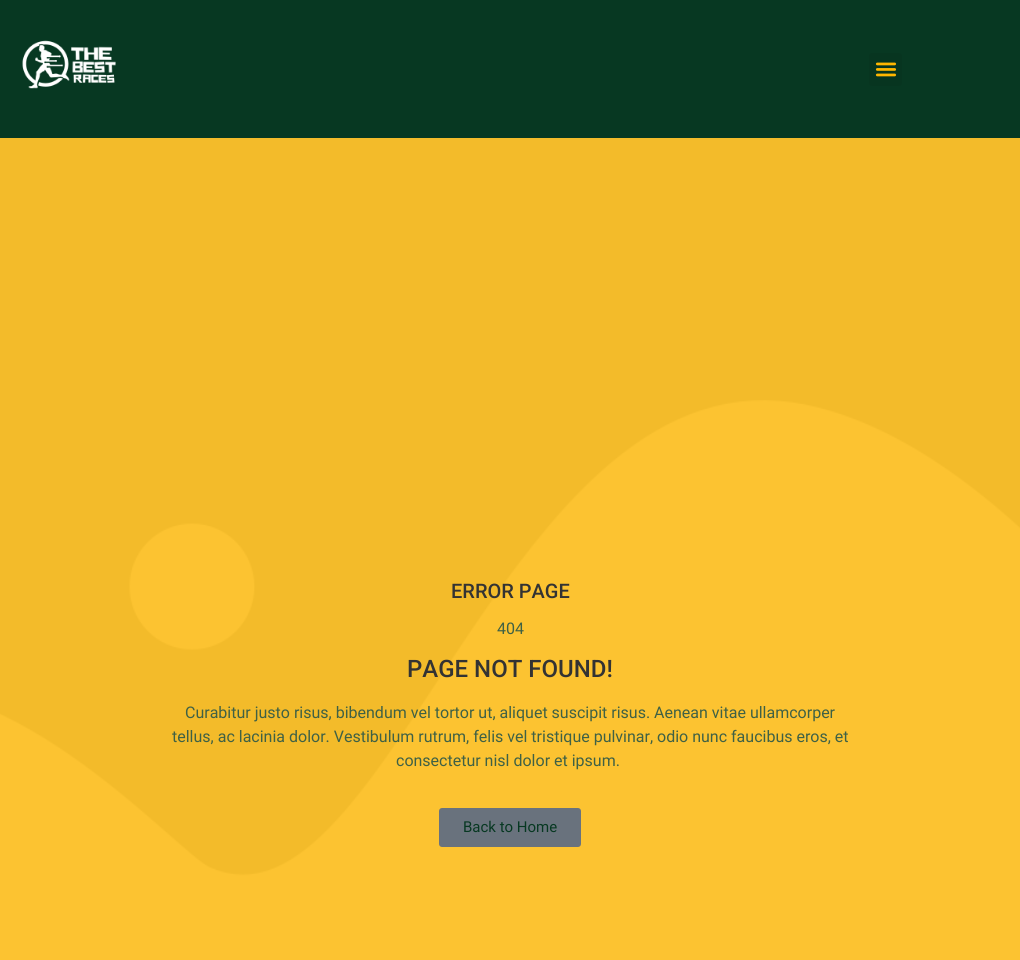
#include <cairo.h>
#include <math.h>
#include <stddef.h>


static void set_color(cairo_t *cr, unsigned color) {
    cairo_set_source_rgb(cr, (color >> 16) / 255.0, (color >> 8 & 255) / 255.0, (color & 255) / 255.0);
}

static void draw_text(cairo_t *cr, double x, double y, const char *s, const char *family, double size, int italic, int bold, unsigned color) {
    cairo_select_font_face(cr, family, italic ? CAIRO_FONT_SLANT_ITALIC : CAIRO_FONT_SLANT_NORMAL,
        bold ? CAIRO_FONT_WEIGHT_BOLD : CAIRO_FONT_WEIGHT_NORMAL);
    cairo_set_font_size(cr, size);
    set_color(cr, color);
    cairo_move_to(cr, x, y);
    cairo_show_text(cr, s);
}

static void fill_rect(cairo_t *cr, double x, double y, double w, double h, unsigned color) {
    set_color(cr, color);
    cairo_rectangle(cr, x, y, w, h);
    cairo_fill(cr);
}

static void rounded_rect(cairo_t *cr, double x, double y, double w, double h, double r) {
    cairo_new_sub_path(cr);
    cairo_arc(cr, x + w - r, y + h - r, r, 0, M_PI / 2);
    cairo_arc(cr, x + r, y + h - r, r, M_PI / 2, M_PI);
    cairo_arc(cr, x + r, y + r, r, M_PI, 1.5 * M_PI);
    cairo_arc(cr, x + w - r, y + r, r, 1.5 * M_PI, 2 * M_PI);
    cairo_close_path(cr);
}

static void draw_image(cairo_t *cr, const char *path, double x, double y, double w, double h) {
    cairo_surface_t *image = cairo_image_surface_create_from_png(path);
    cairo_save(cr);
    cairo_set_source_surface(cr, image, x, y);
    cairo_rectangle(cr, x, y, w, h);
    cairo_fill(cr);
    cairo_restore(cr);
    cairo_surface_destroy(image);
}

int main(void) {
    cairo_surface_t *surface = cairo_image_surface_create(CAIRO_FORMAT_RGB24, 1020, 960);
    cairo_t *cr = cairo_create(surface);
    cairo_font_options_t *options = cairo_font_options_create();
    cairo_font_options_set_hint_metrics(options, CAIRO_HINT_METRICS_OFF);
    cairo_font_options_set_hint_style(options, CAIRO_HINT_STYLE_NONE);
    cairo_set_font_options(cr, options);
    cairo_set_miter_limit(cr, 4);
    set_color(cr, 0xFFFFFF);
    cairo_paint(cr);
    fill_rect(cr, 0, 0, 1020, 138, 0x073822);
    draw_image(cr, "assets/img1.png", 22, 40, 94, 49);
    set_color(cr, 0x073520);
    rounded_rect(cr, 869, 53, 33, 33, 3);
    cairo_fill(cr);
    draw_image(cr, "assets/img2.png", 875, 62, 22, 15);
    draw_image(cr, "assets/img3.png", 0, 138, 1020, 822);
    draw_text(cr, 451, 598, "ERROR PAGE", "Roboto Medium", 20, 0, 0, 0x333333);
    draw_text(cr, 497, 634, "404", "Roboto", 16, 0, 0, 0x3F6145);
    draw_text(cr, 407, 677, "PAGE NOT FOUND!", "Roboto Medium", 24, 0, 0, 0x333333);
    draw_text(cr, 185, 718, "Curabitur justo risus, bibendum vel tortor ut, aliquet suscipit risus. Aenean vitae ullamcorper", "Roboto", 16, 0, 0, 0x3F6145);
    draw_text(cr, 172, 742, "tellus, ac lacinia dolor. Vestibulum rutrum, felis vel tristique pulvinar, odio nunc faucibus eros, et", "Roboto", 16, 0, 0, 0x3F6145);
    draw_text(cr, 396, 766, "consectetur nisl dolor et ipsum.", "Roboto", 16, 0, 0, 0x3F6145);
    set_color(cr, 0x69727D);
    rounded_rect(cr, 439, 808, 142, 39, 3);
    cairo_fill(cr);
    draw_text(cr, 463, 832, "Back to Home", "Roboto", 15, 0, 0, 0x073822);
    cairo_surface_write_to_png(surface, "output.png");
    cairo_font_options_destroy(options);
    cairo_destroy(cr);
    cairo_surface_destroy(surface);
    return 0;
}
